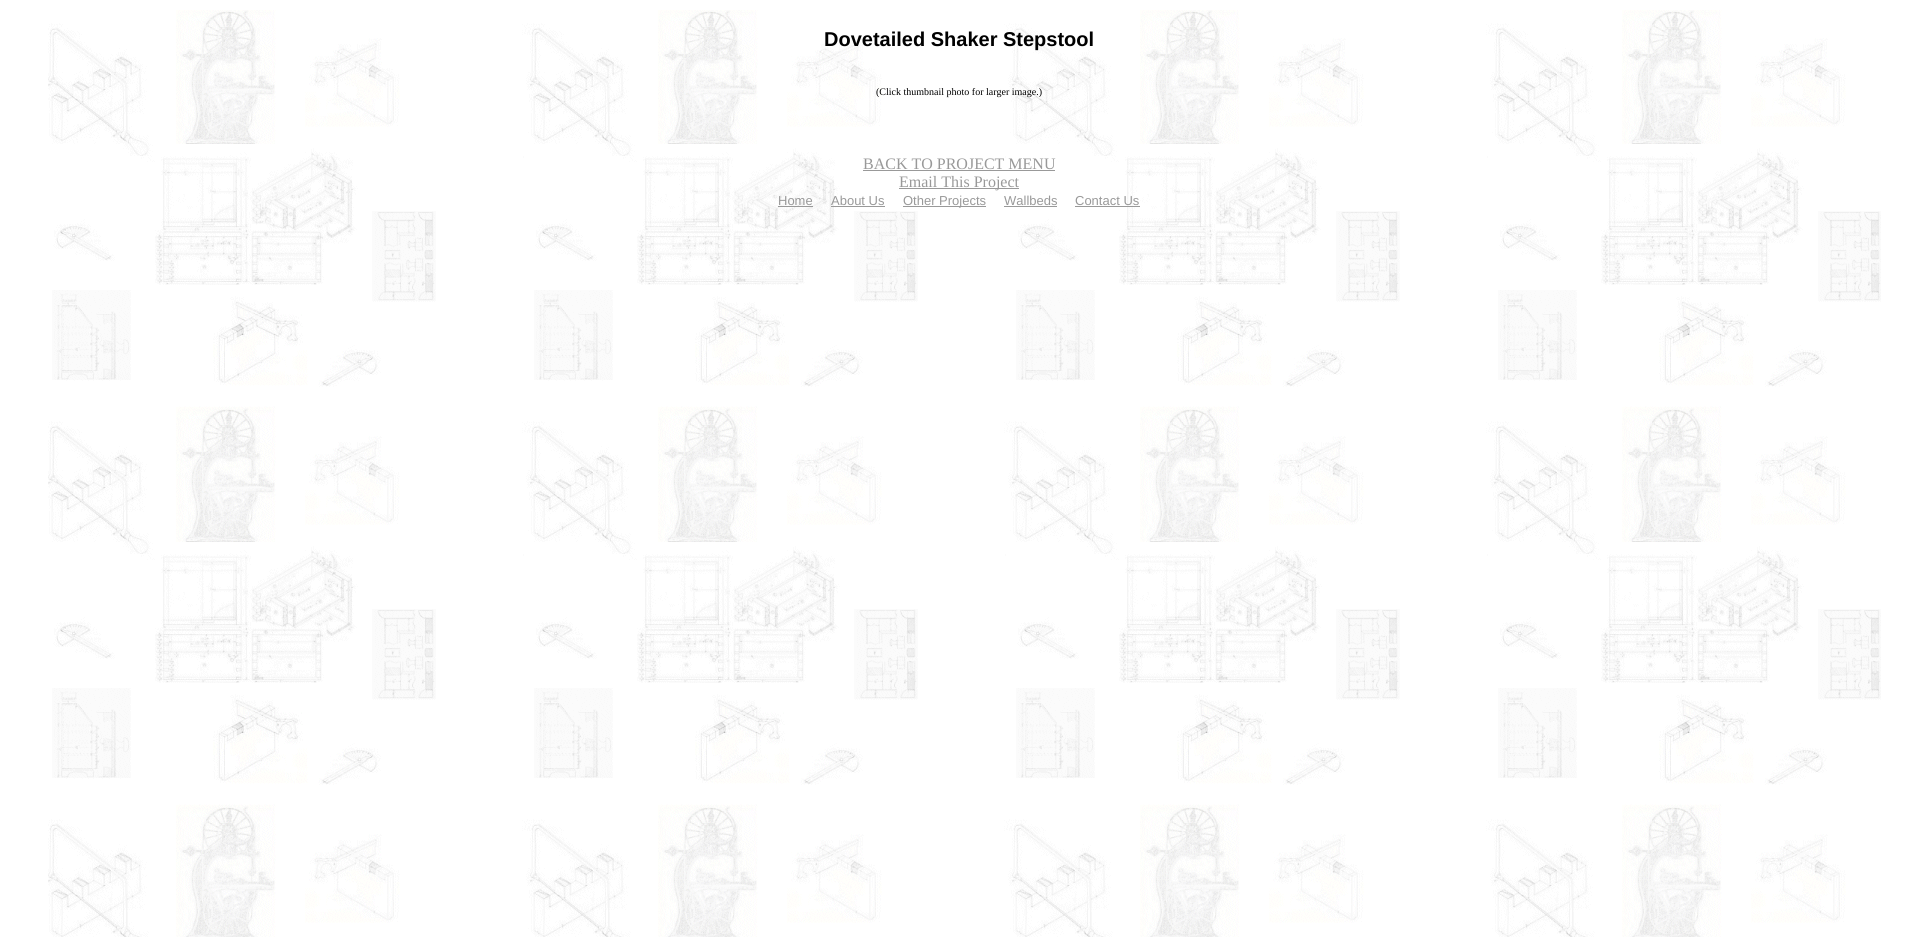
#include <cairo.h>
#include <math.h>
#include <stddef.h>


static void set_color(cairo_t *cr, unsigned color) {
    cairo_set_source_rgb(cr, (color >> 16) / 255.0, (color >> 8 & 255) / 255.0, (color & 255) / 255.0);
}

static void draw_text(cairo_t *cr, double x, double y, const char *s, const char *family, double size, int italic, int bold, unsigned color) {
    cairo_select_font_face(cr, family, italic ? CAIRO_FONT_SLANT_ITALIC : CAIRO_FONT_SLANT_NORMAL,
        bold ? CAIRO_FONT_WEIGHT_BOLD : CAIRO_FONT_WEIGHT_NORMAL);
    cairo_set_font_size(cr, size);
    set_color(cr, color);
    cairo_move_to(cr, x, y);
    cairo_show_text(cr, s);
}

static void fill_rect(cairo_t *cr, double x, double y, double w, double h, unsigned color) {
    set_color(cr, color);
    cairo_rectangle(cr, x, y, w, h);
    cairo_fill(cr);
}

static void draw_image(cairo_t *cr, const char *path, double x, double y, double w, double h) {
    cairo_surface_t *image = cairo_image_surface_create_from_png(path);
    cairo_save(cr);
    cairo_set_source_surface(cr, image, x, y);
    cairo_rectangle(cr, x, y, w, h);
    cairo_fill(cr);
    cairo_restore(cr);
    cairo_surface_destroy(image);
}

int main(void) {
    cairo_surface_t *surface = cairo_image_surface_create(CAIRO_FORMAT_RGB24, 1918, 937);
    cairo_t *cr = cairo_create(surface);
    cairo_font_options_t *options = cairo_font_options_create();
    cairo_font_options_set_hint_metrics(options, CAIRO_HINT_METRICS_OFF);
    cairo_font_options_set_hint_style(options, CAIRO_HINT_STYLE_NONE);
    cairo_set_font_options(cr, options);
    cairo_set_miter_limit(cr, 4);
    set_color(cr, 0xFFFFFF);
    cairo_paint(cr);
    draw_image(cr, "assets/img1.png", 48, 10, 1833, 927);
    draw_text(cr, 824, 46, "Dovetailed Shaker Stepstool", "Liberation Sans", 20, 0, 1, 0x000000);
    draw_text(cr, 876, 95, "(Click thumbnail photo for larger image.)", "Liberation Serif", 10, 0, 0, 0x000000);
    draw_text(cr, 863, 169, "BACK TO PROJECT MENU", "Liberation Serif", 16, 0, 0, 0x999999);
    fill_rect(cr, 863, 170, 192, 1, 0x999999);
    fill_rect(cr, 899, 188, 120, 1, 0x999999);
    draw_text(cr, 899, 187, "Email This Project", "Liberation Serif", 16, 0, 0, 0x999999);
    draw_text(cr, 778, 205, "Home", "Liberation Sans", 13, 0, 0, 0x999999);
    fill_rect(cr, 778, 206, 35, 1, 0x999999);
    draw_text(cr, 831, 205, "About Us", "Liberation Sans", 13, 0, 0, 0x999999);
    fill_rect(cr, 831, 206, 54, 1, 0x999999);
    fill_rect(cr, 903, 206, 83, 1, 0x999999);
    draw_text(cr, 903, 205, "Other Projects", "Liberation Sans", 13, 0, 0, 0x999999);
    draw_text(cr, 1004, 205, "Wallbeds", "Liberation Sans", 13, 0, 0, 0x999999);
    fill_rect(cr, 1004, 206, 53, 1, 0x999999);
    draw_text(cr, 1075, 205, "Contact Us", "Liberation Sans", 13, 0, 0, 0x999999);
    fill_rect(cr, 1075, 206, 65, 1, 0x999999);
    cairo_surface_write_to_png(surface, "output.png");
    cairo_font_options_destroy(options);
    cairo_destroy(cr);
    cairo_surface_destroy(surface);
    return 0;
}
